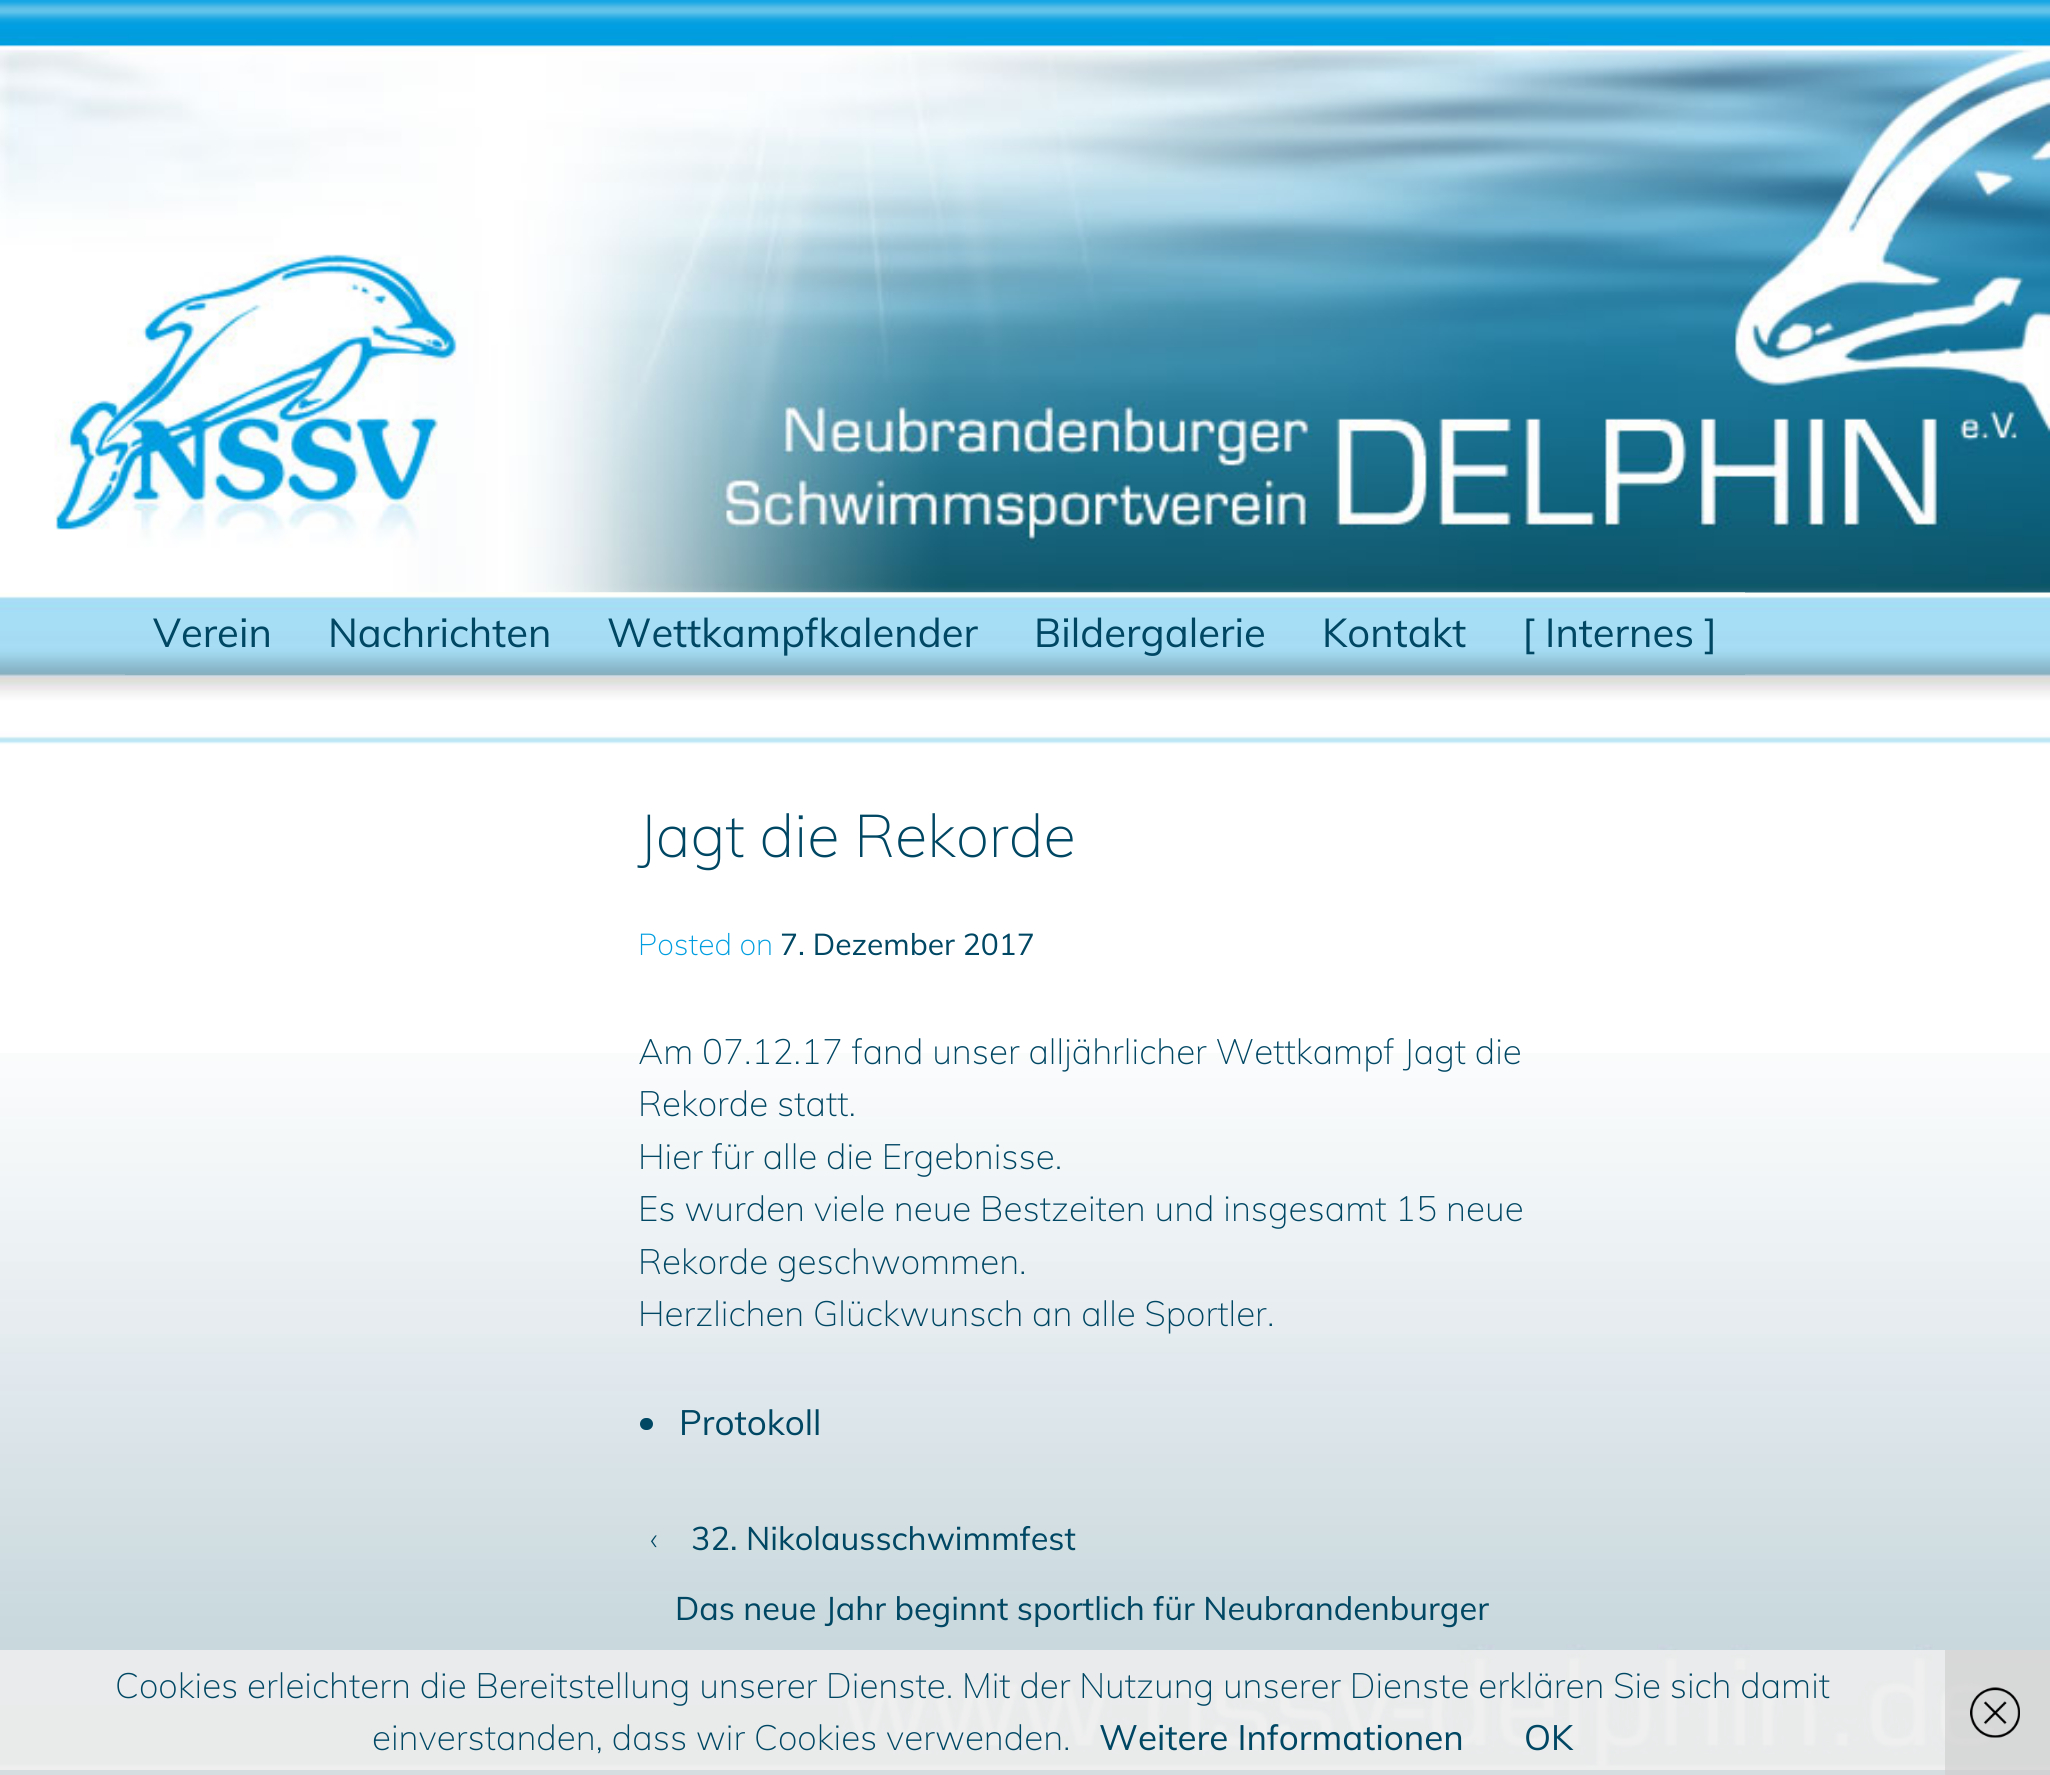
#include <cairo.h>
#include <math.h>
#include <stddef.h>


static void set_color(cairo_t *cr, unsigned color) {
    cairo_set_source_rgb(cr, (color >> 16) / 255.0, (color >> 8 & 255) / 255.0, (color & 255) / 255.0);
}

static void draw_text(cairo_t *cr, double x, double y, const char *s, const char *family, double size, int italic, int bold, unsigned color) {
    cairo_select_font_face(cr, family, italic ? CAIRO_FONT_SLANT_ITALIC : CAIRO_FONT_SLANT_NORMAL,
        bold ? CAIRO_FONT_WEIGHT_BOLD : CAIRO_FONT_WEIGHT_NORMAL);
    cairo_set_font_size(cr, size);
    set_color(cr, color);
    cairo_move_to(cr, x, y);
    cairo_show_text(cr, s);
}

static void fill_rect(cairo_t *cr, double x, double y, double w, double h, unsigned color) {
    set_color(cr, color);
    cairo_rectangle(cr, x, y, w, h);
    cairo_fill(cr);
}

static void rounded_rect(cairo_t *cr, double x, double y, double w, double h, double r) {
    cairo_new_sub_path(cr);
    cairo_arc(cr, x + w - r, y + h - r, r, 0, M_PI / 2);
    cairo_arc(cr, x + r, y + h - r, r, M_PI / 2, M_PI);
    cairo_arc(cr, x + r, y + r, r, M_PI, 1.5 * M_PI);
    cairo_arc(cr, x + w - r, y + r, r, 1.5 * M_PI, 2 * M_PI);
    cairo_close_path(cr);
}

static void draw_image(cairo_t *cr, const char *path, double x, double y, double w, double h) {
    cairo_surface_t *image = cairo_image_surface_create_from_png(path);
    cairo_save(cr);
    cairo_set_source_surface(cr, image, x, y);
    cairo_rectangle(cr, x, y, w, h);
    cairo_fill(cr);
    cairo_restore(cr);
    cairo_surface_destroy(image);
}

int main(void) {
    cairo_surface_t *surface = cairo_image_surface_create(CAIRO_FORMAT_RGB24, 2050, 1775);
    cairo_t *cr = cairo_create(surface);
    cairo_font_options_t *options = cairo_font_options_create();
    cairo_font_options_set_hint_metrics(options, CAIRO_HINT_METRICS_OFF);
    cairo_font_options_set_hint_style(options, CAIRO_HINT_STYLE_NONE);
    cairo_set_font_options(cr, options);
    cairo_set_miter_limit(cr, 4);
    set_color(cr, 0xFFFFFF);
    cairo_paint(cr);
    draw_image(cr, "assets/img1.png", 0, 592, 2050, 1);
    draw_image(cr, "assets/img3.png", 0, 592, 2050, 153);
    draw_image(cr, "assets/img2.png", 0, 0, 2050, 593);
    fill_rect(cr, 125, 674, 175, 1, 0x8AB0BD);
    draw_text(cr, 153, 647, "Verein", "Muli", 40, 0, 0, 0x004764);
    draw_image(cr, "assets/img4.png", 300, 592, 280, 83);
    draw_text(cr, 328, 647, "Nachrichten", "Muli", 40, 0, 0, 0x004764);
    draw_image(cr, "assets/img5.png", 580, 592, 425, 83);
    draw_text(cr, 607, 647, "Wettkampfkalender", "Muli", 40, 0, 0, 0x004764);
    draw_image(cr, "assets/img6.png", 1005, 592, 290, 83);
    draw_text(cr, 1034, 647, "Bildergalerie", "Muli", 40, 0, 0, 0x004764);
    draw_image(cr, "assets/img7.png", 1295, 592, 200, 83);
    draw_text(cr, 1322, 647, "Kontakt", "Muli", 40, 0, 0, 0x004764);
    draw_image(cr, "assets/img8.png", 1495, 592, 250, 83);
    draw_text(cr, 1522, 647, "[ Internes ]", "Muli", 40, 0, 0, 0x004764);
    draw_image(cr, "assets/img9.png", 0, 1053, 2050, 717);
    draw_text(cr, 638, 857, "Jagt die Rekorde", "Muli ExtraLight", 59.5, 0, 0, 0x004764);
    draw_text(cr, 638, 955, "Posted on", "Muli ExtraLight", 30, 0, 0, 0x009EE0);
    draw_text(cr, 780, 955, "7. Dezember 2017", "Muli", 30, 0, 0, 0x004764);
    draw_text(cr, 638, 1064, "Am 07.12.17 fand unser alljährlicher Wettkampf Jagt die", "Muli ExtraLight", 35, 0, 0, 0x004764);
    draw_text(cr, 638, 1116, "Rekorde statt.", "Muli ExtraLight", 35, 0, 0, 0x004764);
    draw_text(cr, 638, 1169, "Hier für alle die Ergebnisse.", "Muli ExtraLight", 35, 0, 0, 0x004764);
    draw_text(cr, 638, 1221, "Es wurden viele neue Bestzeiten und insgesamt 15 neue", "Muli ExtraLight", 35, 0, 0, 0x004764);
    draw_text(cr, 638, 1274, "Rekorde geschwommen.", "Muli ExtraLight", 35, 0, 0, 0x004764);
    draw_text(cr, 638, 1326, "Herzlichen Glückwunsch an alle Sportler.", "Muli ExtraLight", 35, 0, 0, 0x004764);
    rounded_rect(cr, 640, 1418, 13, 12, 6);
    cairo_fill(cr);
    draw_text(cr, 679, 1435, "Protokoll", "Muli", 35, 0, 0, 0x004764);
    draw_text(cr, 650, 1550, "‹", "Muli ExtraLight", 32.5, 0, 0, 0x004764);
    draw_text(cr, 691, 1550, "32. Nikolausschwimmfest", "Muli", 32.5, 0, 0, 0x004764);
    draw_text(cr, 675, 1620, "Das neue Jahr beginnt sportlich für Neubrandenburger", "Muli", 32.5, 0, 0, 0x004764);
    fill_rect(cr, 0, 1770, 2050, 5, 0x004763);
    cairo_set_source_rgba(cr, 0.933, 0.933, 0.933, 0.9);
    cairo_rectangle(cr, 0, 1650, 2050, 125);
    cairo_fill(cr);
    draw_text(cr, 115, 1698, "Cookies erleichtern die Bereitstellung unserer Dienste. Mit der Nutzung unserer Dienste erklären Sie sich damit", "Muli ExtraLight", 35, 0, 0, 0x004764);
    draw_text(cr, 372, 1750, "einverstanden, dass wir Cookies verwenden.", "Muli ExtraLight", 35, 0, 0, 0x004764);
    draw_text(cr, 1099, 1750, "Weitere Informationen", "Muli", 35, 0, 0, 0x004764);
    draw_text(cr, 1524, 1750, "OK", "Muli", 35, 0, 0, 0x004764);
    cairo_set_source_rgba(cr, 0.8, 0.8, 0.8, 0.6);
    cairo_rectangle(cr, 1945, 1650, 105, 125);
    cairo_fill(cr);
    draw_image(cr, "assets/img10.png", 1970, 1687, 50, 51);
    cairo_surface_write_to_png(surface, "output.png");
    cairo_font_options_destroy(options);
    cairo_destroy(cr);
    cairo_surface_destroy(surface);
    return 0;
}
